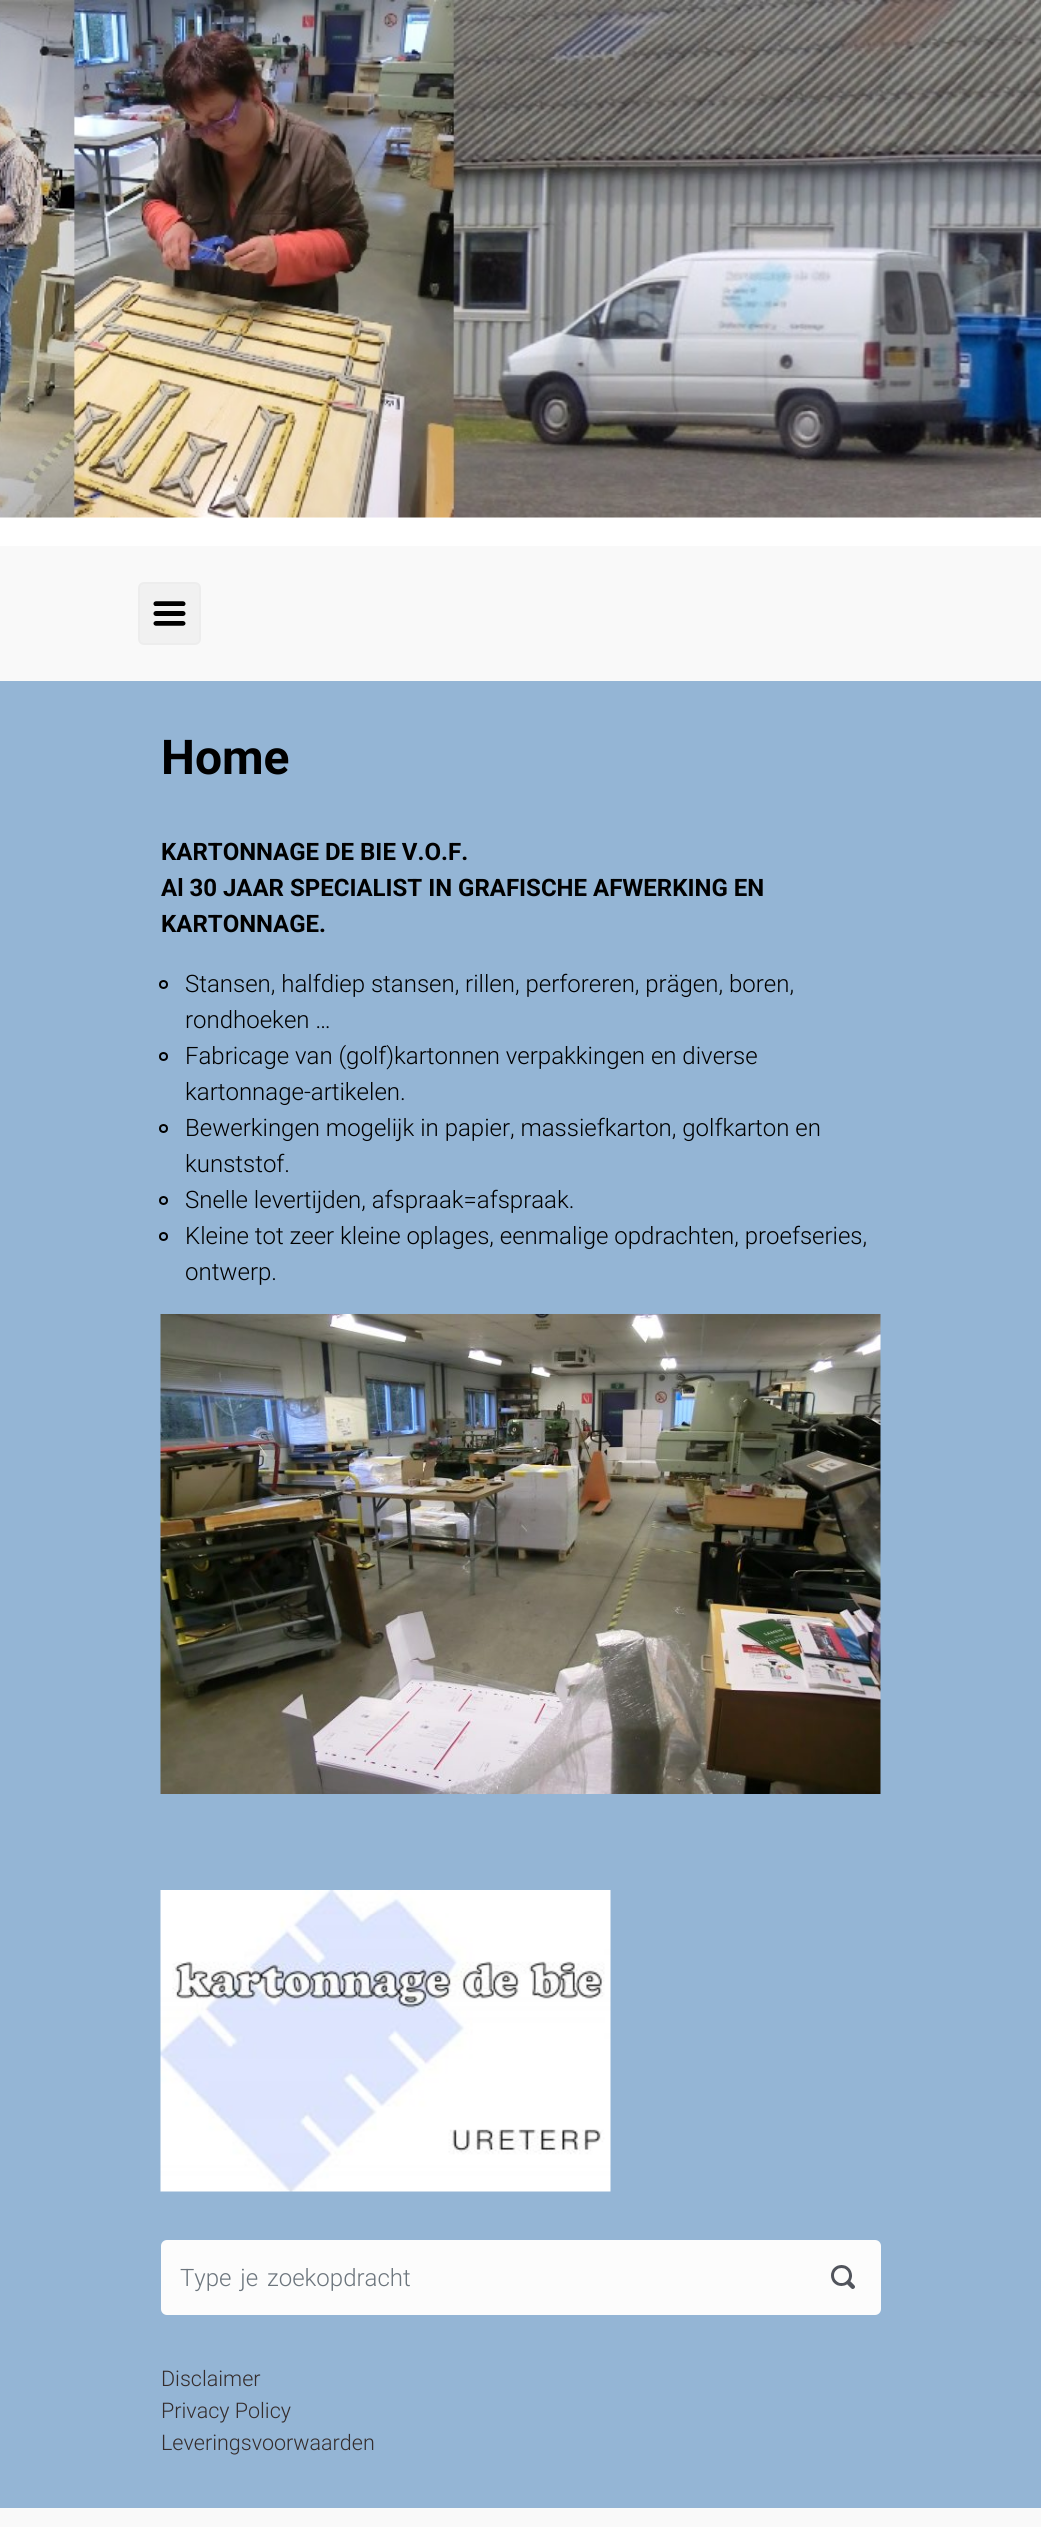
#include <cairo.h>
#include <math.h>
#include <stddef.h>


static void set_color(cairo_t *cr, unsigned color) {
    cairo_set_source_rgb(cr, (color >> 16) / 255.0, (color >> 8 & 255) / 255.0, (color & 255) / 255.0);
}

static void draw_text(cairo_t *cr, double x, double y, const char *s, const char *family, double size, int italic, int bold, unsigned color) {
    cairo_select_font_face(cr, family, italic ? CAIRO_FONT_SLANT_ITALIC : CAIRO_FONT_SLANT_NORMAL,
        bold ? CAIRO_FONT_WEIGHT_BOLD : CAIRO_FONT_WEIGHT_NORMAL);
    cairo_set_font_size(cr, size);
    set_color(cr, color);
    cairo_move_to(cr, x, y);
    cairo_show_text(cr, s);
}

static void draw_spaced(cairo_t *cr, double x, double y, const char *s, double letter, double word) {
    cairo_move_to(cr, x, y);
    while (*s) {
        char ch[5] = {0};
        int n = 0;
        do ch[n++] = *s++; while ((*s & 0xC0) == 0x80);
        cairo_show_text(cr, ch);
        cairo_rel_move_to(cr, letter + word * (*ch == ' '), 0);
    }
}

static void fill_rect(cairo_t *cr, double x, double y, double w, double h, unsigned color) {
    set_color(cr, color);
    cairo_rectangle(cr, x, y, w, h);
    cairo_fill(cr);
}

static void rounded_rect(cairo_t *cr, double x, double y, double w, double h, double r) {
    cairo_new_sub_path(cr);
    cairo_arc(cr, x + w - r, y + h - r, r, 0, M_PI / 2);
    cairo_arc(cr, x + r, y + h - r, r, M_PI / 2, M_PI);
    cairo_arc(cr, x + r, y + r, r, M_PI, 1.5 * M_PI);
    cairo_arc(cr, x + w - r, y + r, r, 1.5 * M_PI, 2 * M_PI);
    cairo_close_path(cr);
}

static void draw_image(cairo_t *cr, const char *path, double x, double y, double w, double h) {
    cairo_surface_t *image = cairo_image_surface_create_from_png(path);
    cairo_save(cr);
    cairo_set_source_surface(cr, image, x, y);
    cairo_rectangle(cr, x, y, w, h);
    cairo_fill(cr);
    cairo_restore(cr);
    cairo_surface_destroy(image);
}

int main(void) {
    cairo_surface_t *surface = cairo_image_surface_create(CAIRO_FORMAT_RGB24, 1041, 2527);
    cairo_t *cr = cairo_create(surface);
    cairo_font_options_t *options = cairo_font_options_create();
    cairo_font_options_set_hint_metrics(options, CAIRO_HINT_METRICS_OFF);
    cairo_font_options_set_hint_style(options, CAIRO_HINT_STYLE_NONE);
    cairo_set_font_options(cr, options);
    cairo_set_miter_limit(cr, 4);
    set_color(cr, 0xF9F9F9);
    cairo_paint(cr);
    fill_rect(cr, 0, 517, 1041, 29, 0xFFFFFF);
    draw_image(cr, "assets/img1.png", 0, 0, 1041, 518);
    set_color(cr, 0xF1F1F1);
    rounded_rect(cr, 139, 583, 61, 61, 5);
    cairo_fill_preserve(cr);
    set_color(cr, 0xEDEDED);
    cairo_stroke(cr);
    draw_image(cr, "assets/img2.png", 153, 601, 33, 25);
    fill_rect(cr, 0, 681, 1041, 1827, 0x94B5D5);
    draw_text(cr, 161, 774, "Home", "Roboto", 48, 0, 1, 0x000000);
    draw_text(cr, 161, 860, "KARTONNAGE DE BIE V.O.F.", "Roboto", 24, 0, 1, 0x000000);
    draw_text(cr, 161, 896, "Al 30 JAAR SPECIALIST IN GRAFISCHE AFWERKING EN", "Roboto", 24, 0, 1, 0x000000);
    draw_text(cr, 161, 932, "KARTONNAGE.", "Roboto", 24, 0, 1, 0x000000);
    cairo_new_path(cr);
    cairo_arc(cr, 163.5, 984.5, 3.5, 0, 2 * M_PI);
    cairo_stroke(cr);
    draw_text(cr, 185, 992, "Stansen, halfdiep stansen, rillen, perforeren, prägen, boren,", "Roboto Light", 24, 0, 0, 0x000000);
    draw_text(cr, 185, 1028, "rondhoeken …", "Roboto Light", 24, 0, 0, 0x000000);
    cairo_new_path(cr);
    cairo_arc(cr, 163.5, 1056.5, 3.5, 0, 2 * M_PI);
    cairo_stroke(cr);
    draw_text(cr, 185, 1064, "Fabricage van (golf)kartonnen verpakkingen en diverse", "Roboto Light", 24, 0, 0, 0x000000);
    draw_text(cr, 185, 1100, "kartonnage-artikelen.", "Roboto Light", 24, 0, 0, 0x000000);
    cairo_new_path(cr);
    cairo_arc(cr, 163.5, 1128.5, 3.5, 0, 2 * M_PI);
    cairo_stroke(cr);
    draw_text(cr, 185, 1136, "Bewerkingen mogelijk in papier, massiefkarton, golfkarton en", "Roboto Light", 24, 0, 0, 0x000000);
    draw_text(cr, 185, 1172, "kunststof.", "Roboto Light", 24, 0, 0, 0x000000);
    cairo_new_path(cr);
    cairo_arc(cr, 163.5, 1200.5, 3.5, 0, 2 * M_PI);
    cairo_stroke(cr);
    draw_text(cr, 185, 1208, "Snelle levertijden, afspraak=afspraak.", "Roboto Light", 24, 0, 0, 0x000000);
    cairo_new_path(cr);
    cairo_arc(cr, 163.5, 1236.5, 3.5, 0, 2 * M_PI);
    cairo_stroke(cr);
    draw_text(cr, 185, 1244, "Kleine tot zeer kleine oplages, eenmalige opdrachten, proefseries,", "Roboto Light", 24, 0, 0, 0x000000);
    draw_text(cr, 185, 1280, "ontwerp.", "Roboto Light", 24, 0, 0, 0x000000);
    draw_image(cr, "assets/img3.png", 160, 1314, 721, 480);
    draw_image(cr, "assets/img4.png", 160, 1890, 451, 302);
    set_color(cr, 0xFCFCFC);
    rounded_rect(cr, 162, 2241, 718, 73, 5);
    cairo_fill_preserve(cr);
    cairo_stroke(cr);
    set_color(cr, 0x6C757D);
    draw_spaced(cr, 180, 2286, "Type je zoekopdracht", 0, 3);
    draw_image(cr, "assets/img5.png", 831, 2265, 24, 24);
    draw_text(cr, 161, 2386, "Disclaimer", "Roboto Light", 21.5, 0, 0, 0x342C2C);
    draw_text(cr, 161, 2418, "Privacy Policy", "Roboto Light", 21.5, 0, 0, 0x342C2C);
    draw_text(cr, 161, 2450, "Leveringsvoorwaarden", "Roboto Light", 21.5, 0, 0, 0x342C2C);
    cairo_surface_write_to_png(surface, "output.png");
    cairo_font_options_destroy(options);
    cairo_destroy(cr);
    cairo_surface_destroy(surface);
    return 0;
}
